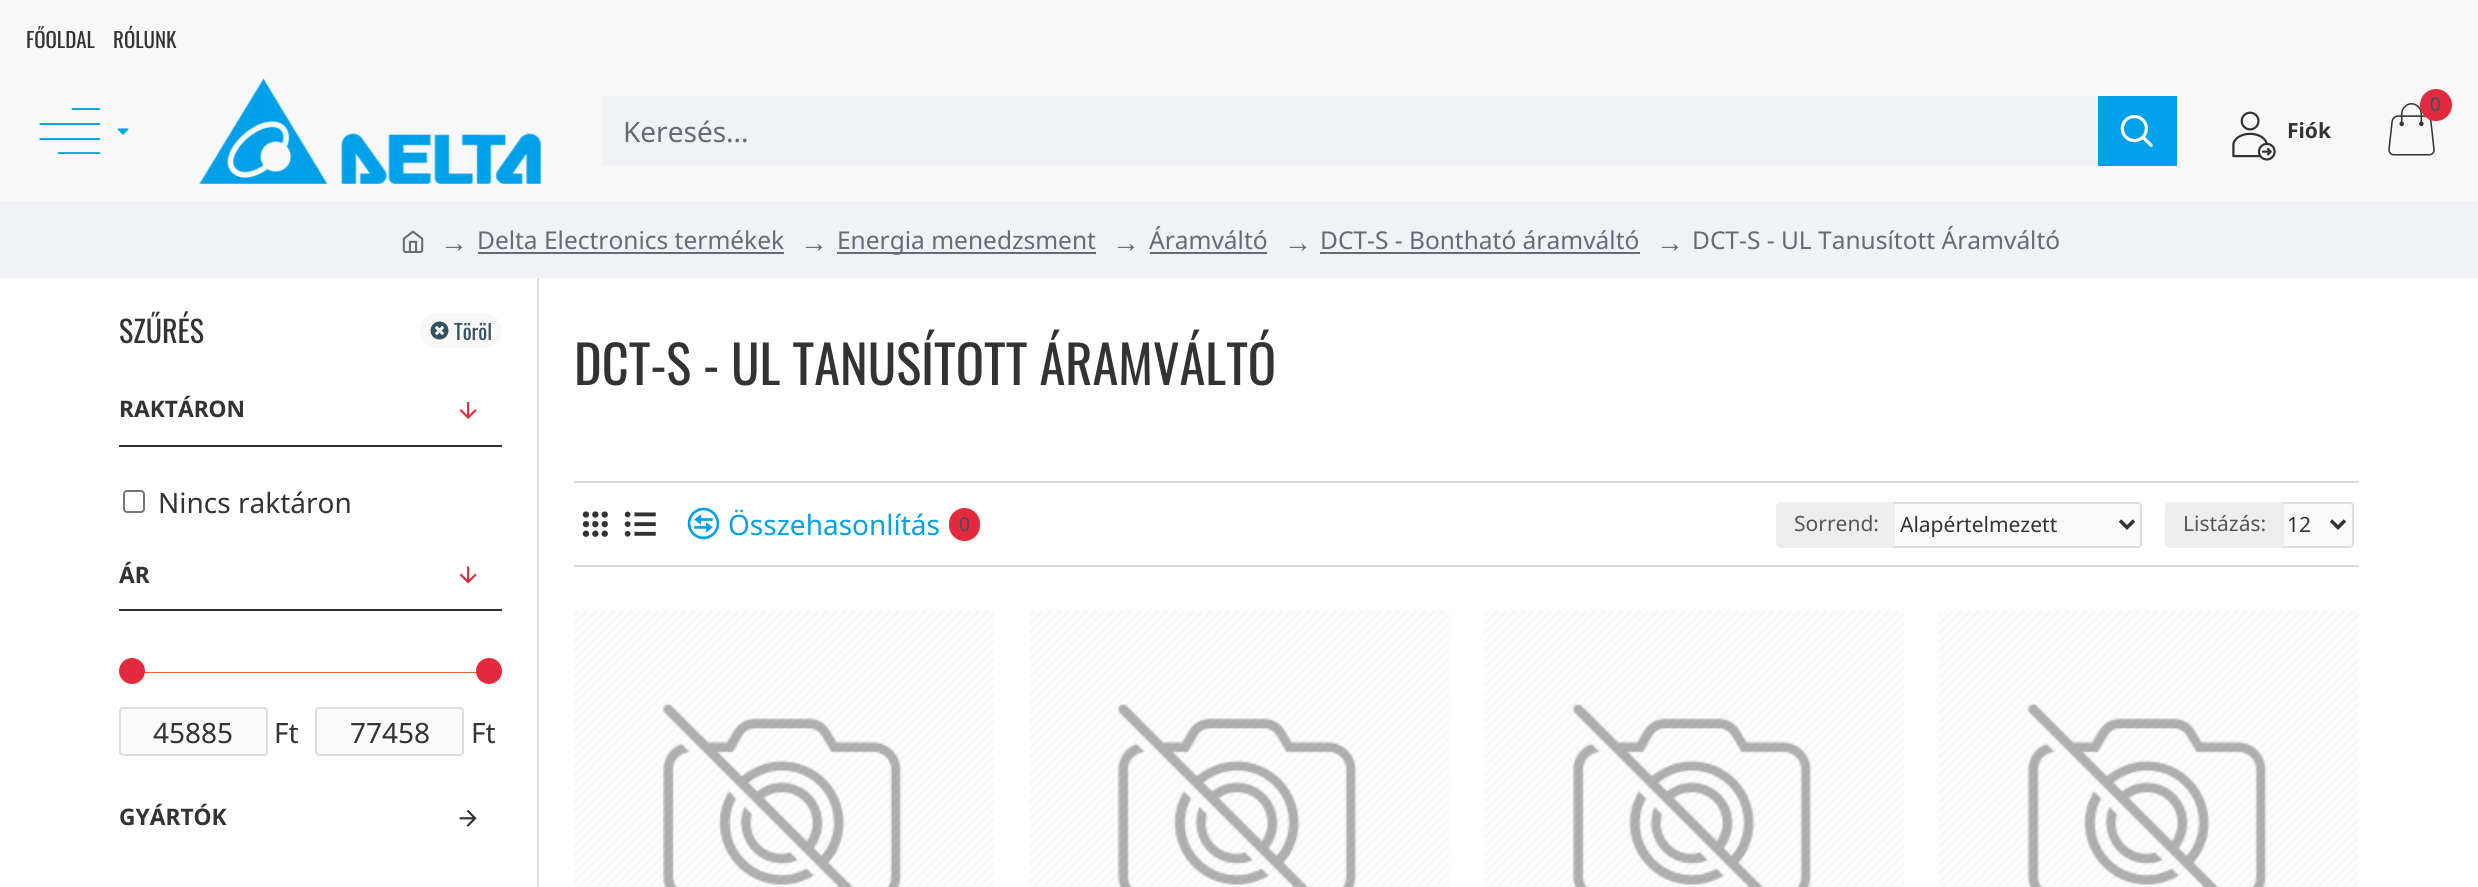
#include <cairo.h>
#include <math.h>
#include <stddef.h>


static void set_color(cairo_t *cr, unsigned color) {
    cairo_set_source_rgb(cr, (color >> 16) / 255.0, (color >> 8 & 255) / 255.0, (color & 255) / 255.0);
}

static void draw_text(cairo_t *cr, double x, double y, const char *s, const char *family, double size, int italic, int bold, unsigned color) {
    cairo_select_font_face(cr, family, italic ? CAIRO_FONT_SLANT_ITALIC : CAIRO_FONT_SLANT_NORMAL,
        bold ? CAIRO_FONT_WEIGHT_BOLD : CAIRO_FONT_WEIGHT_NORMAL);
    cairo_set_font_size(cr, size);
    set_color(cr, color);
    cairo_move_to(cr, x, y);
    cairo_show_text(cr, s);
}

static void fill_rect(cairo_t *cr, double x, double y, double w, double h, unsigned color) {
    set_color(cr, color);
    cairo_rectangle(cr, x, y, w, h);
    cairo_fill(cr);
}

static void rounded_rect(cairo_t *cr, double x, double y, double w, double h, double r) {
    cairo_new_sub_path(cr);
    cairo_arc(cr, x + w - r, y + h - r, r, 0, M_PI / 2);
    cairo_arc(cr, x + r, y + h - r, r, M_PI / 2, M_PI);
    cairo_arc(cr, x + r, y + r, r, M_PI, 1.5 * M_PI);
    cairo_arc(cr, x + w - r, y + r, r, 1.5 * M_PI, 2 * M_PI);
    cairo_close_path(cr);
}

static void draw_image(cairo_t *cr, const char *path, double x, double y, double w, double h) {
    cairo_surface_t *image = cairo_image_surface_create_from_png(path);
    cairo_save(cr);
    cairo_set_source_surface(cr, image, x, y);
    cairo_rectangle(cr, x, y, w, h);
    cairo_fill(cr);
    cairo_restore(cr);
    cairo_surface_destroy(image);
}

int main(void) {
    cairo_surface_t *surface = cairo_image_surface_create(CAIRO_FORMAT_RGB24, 2478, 887);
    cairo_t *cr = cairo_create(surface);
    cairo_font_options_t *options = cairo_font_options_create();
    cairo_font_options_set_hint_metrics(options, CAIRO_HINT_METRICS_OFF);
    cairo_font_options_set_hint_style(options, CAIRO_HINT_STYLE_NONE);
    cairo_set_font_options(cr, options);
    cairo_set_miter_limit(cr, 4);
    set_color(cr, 0xFFFFFF);
    cairo_paint(cr);
    fill_rect(cr, 0, 0, 2478, 201, 0xF8F8F8);
    draw_text(cr, 26, 48, "FŐOLDAL", "Oswald", 21, 0, 0, 0x333333);
    draw_text(cr, 113, 48, "RÓLUNK", "Oswald", 21, 0, 0, 0x333333);
    draw_image(cr, "assets/img1.png", 39, 108, 62, 46);
    draw_image(cr, "assets/img2.png", 117, 128, 12, 7);
    draw_image(cr, "assets/img3.png", 199, 78, 343, 106);
    fill_rect(cr, 602, 96, 1496, 70, 0xF0F2F5);
    draw_text(cr, 623, 142, "Keresés...", "Noto Sans", 28, 0, 0, 0x696973);
    fill_rect(cr, 2098, 96, 79, 70, 0x00A1E9);
    draw_image(cr, "assets/img4.png", 2120, 114, 33, 33);
    draw_image(cr, "assets/img5.png", 2388, 103, 47, 53);
    set_color(cr, 0xE2293D);
    cairo_arc(cr, 2436, 105, 16, 0, 2 * M_PI);
    cairo_fill(cr);
    draw_text(cr, 2430, 111, "0", "Noto Sans", 19, 0, 0, 0x35535F);
    draw_image(cr, "assets/img6.png", 2232, 111, 44, 50);
    draw_text(cr, 2287, 138, "Fiók", "Noto Sans", 21, 0, 1, 0x333333);
    fill_rect(cr, 0, 201, 2478, 77, 0xF0F2F5);
    draw_image(cr, "assets/img7.png", 402, 230, 22, 23);
    draw_text(cr, 440, 252, "→", "Liberation Serif", 28, 0, 0, 0x696973);
    draw_text(cr, 477, 249, "Delta Electronics termékek", "Noto Sans", 24.5, 0, 0, 0x696973);
    fill_rect(cr, 478, 252, 306, 2, 0x696973);
    draw_text(cr, 800, 252, "→", "Liberation Serif", 28, 0, 0, 0x696973);
    fill_rect(cr, 837, 252, 259, 2, 0x696973);
    draw_text(cr, 837, 249, "Energia menedzsment", "Noto Sans", 24.5, 0, 0, 0x696973);
    draw_text(cr, 1112, 252, "→", "Liberation Serif", 28, 0, 0, 0x696973);
    draw_text(cr, 1149, 249, "Áramváltó", "Noto Sans", 24.5, 0, 0, 0x696973);
    fill_rect(cr, 1150, 252, 117, 2, 0x696973);
    draw_text(cr, 1284, 252, "→", "Liberation Serif", 28, 0, 0, 0x696973);
    draw_text(cr, 1320, 249, "DCT-S - Bontható áramváltó", "Noto Sans", 24.5, 0, 0, 0x696973);
    fill_rect(cr, 1320, 252, 320, 2, 0x696973);
    draw_text(cr, 1656, 252, "→", "Liberation Serif", 28, 0, 0, 0x696973);
    draw_text(cr, 1692, 249, "DCT-S - UL Tanusított Áramváltó", "Noto Sans", 24.5, 0, 0, 0x696973);
    fill_rect(cr, 537, 278, 2, 609, 0xDDDDDD);
    draw_text(cr, 119, 343, "SZŰRÉS", "Oswald", 30, 0, 0, 0x333333);
    set_color(cr, 0xF8F8F8);
    rounded_rect(cr, 420, 313, 82, 35, 17.5);
    cairo_fill(cr);
    draw_image(cr, "assets/img8.png", 430, 321, 19, 19);
    draw_text(cr, 454, 340, "Töröl", "Oswald", 21, 0, 0, 0x35535F);
    draw_text(cr, 119, 417, "RAKTÁRON", "Noto Sans", 22.75, 0, 1, 0x333333);
    draw_image(cr, "assets/img9.png", 459, 402, 18, 17);
    fill_rect(cr, 119, 445, 383, 2, 0x303033);
    rounded_rect(cr, 124, 491, 20, 21, 3);
    set_color(cr, 0x767676);
    cairo_stroke(cr);
    draw_text(cr, 158, 513, "Nincs raktáron", "Noto Sans", 28, 0, 0, 0x333333);
    draw_text(cr, 119, 583, "ÁR", "Noto Sans", 22.75, 0, 1, 0x333333);
    draw_image(cr, "assets/img10.png", 459, 566, 18, 18);
    fill_rect(cr, 119, 609, 383, 2, 0x303033);
    set_color(cr, 0xE96631);
    cairo_new_path(cr);
    cairo_move_to(cr, 142, 672);
    cairo_line_to(cr, 481, 672);
    cairo_line_to(cr, 487, 672);
    cairo_line_to(cr, 490, 673);
    cairo_line_to(cr, 481, 673);
    cairo_line_to(cr, 142, 673);
    cairo_line_to(cr, 133, 673);
    cairo_line_to(cr, 136, 672);
    cairo_close_path(cr);
    cairo_fill(cr);
    set_color(cr, 0xE2293D);
    cairo_arc(cr, 132, 671, 13, 0, 2 * M_PI);
    cairo_fill(cr);
    cairo_arc(cr, 489, 671, 13, 0, 2 * M_PI);
    cairo_fill(cr);
    set_color(cr, 0xFAFAFA);
    rounded_rect(cr, 120, 708, 147, 47, 3);
    cairo_fill_preserve(cr);
    set_color(cr, 0xDDDDDD);
    cairo_stroke(cr);
    draw_text(cr, 153, 743, "45885", "Noto Sans", 28, 0, 0, 0x333333);
    draw_text(cr, 274, 743, "Ft", "Noto Sans", 28, 0, 0, 0x333333);
    set_color(cr, 0xFAFAFA);
    rounded_rect(cr, 316, 708, 147, 47, 3);
    cairo_fill_preserve(cr);
    set_color(cr, 0xDDDDDD);
    cairo_stroke(cr);
    draw_text(cr, 350, 743, "77458", "Noto Sans", 28, 0, 0, 0x333333);
    draw_text(cr, 471, 743, "Ft", "Noto Sans", 28, 0, 0, 0x333333);
    draw_text(cr, 119, 825, "GYÁRTÓK", "Noto Sans", 22.75, 0, 1, 0x333333);
    draw_image(cr, "assets/img11.png", 459, 809, 18, 18);
    draw_text(cr, 574, 385, "DCT-S - UL TANUSÍTOTT ÁRAMVÁLTÓ", "Oswald", 52.5, 0, 0, 0x333333);
    fill_rect(cr, 574, 481, 1785, 2, 0xDDDDDD);
    fill_rect(cr, 574, 565, 1785, 2, 0xDDDDDD);
    draw_image(cr, "assets/img12.png", 582, 511, 26, 26);
    draw_image(cr, "assets/img13.png", 624, 511, 32, 26);
    draw_image(cr, "assets/img14.png", 687, 507, 33, 33);
    draw_text(cr, 728, 535, "Összehasonlítás", "Noto Sans", 28, 0, 0, 0x00A1E9);
    set_color(cr, 0xE2293D);
    rounded_rect(cr, 949, 508, 31, 33, 15.5);
    cairo_fill(cr);
    draw_text(cr, 959, 531, "0", "Noto Sans", 19, 0, 0, 0x35535F);
    set_color(cr, 0xFAFAFA);
    rounded_rect(cr, 1891, 503, 250, 44, 3);
    cairo_fill_preserve(cr);
    set_color(cr, 0xDDDDDD);
    cairo_stroke(cr);
    set_color(cr, 0xEEEEEE);
    rounded_rect(cr, 1776, 502, 119, 46, 5);
    cairo_fill(cr);
    draw_text(cr, 1794, 531, "Sorrend:", "Noto Sans", 21, 0, 0, 0x555555);
    cairo_new_path(cr);
    cairo_move_to(cr, 2120, 520.5);
    cairo_line_to(cr, 2127, 527.5);
    cairo_line_to(cr, 2134, 520.5);
    set_color(cr, 0x333333);
    cairo_set_line_width(cr, 3.5);
    cairo_stroke(cr);
    draw_text(cr, 1900, 532, "Alapértelmezett", "Noto Sans", 21, 0, 0, 0x333333);
    set_color(cr, 0xFAFAFA);
    rounded_rect(cr, 2280, 503, 73, 44, 3);
    cairo_fill_preserve(cr);
    set_color(cr, 0xDDDDDD);
    cairo_set_line_width(cr, 2);
    cairo_stroke(cr);
    set_color(cr, 0xEEEEEE);
    rounded_rect(cr, 2165, 502, 119, 46, 5);
    cairo_fill(cr);
    draw_text(cr, 2183, 531, "Listázás:", "Noto Sans", 21, 0, 0, 0x555555);
    cairo_new_path(cr);
    cairo_move_to(cr, 2331, 520.5);
    cairo_line_to(cr, 2338, 527.5);
    cairo_line_to(cr, 2345, 520.5);
    set_color(cr, 0x333333);
    cairo_set_line_width(cr, 3.5);
    cairo_stroke(cr);
    draw_text(cr, 2287, 532, "12", "Noto Sans", 21, 0, 0, 0x333333);
    draw_image(cr, "assets/img15.png", 574, 611, 420, 276);
    draw_image(cr, "assets/img16.png", 1029, 611, 420, 276);
    draw_image(cr, "assets/img17.png", 1484, 611, 420, 276);
    draw_image(cr, "assets/img16.png", 1939, 611, 420, 276);
    cairo_surface_write_to_png(surface, "output.png");
    cairo_font_options_destroy(options);
    cairo_destroy(cr);
    cairo_surface_destroy(surface);
    return 0;
}
